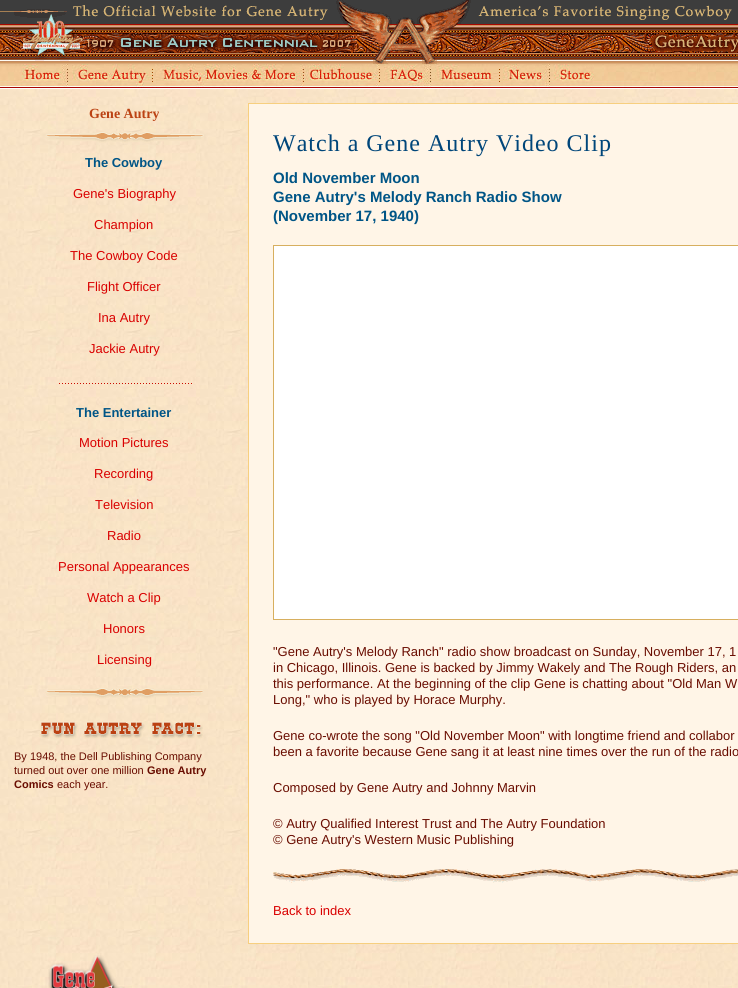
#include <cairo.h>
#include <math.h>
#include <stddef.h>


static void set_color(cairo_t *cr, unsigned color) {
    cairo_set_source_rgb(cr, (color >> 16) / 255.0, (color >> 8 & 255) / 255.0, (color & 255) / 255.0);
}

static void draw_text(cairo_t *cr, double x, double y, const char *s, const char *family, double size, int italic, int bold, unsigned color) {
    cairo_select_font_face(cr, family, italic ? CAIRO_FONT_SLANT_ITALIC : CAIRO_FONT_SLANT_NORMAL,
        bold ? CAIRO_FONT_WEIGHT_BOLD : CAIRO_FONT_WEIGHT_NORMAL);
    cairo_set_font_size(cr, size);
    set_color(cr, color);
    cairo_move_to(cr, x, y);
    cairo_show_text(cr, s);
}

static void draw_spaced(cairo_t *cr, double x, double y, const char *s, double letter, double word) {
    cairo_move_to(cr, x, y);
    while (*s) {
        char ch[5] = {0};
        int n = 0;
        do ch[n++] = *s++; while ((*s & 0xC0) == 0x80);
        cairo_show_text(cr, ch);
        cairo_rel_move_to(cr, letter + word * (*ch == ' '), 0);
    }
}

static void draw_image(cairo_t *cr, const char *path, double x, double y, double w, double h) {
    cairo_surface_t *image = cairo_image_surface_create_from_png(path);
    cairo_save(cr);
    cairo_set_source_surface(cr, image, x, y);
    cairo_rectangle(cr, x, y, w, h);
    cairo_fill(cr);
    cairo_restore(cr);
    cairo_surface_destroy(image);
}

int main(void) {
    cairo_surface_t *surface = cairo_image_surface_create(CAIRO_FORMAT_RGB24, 738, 988);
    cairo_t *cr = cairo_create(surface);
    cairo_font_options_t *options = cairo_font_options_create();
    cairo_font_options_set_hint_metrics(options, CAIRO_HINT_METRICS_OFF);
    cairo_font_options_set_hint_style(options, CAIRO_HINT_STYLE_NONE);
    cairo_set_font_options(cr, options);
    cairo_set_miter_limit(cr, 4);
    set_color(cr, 0xFFFFFF);
    cairo_paint(cr);
    draw_image(cr, "assets/img1.png", 0, 0, 738, 64);
    draw_image(cr, "assets/img2.png", 14, 0, 724, 64);
    draw_image(cr, "assets/img3.png", 0, 64, 738, 25);
    draw_image(cr, "assets/img4.png", 14, 64, 54, 24);
    draw_image(cr, "assets/img5.png", 72, 64, 81, 24);
    draw_image(cr, "assets/img6.png", 156, 64, 148, 24);
    draw_image(cr, "assets/img7.png", 304, 64, 76, 24);
    draw_image(cr, "assets/img8.png", 384, 64, 47, 24);
    draw_image(cr, "assets/img9.png", 435, 64, 65, 24);
    draw_image(cr, "assets/img10.png", 503, 64, 47, 24);
    draw_image(cr, "assets/img11.png", 554, 64, 50, 24);
    draw_image(cr, "assets/img12.png", 0, 89, 738, 899);
    draw_text(cr, 89, 118, "Gene Autry", "Liberation Serif", 14, 0, 1, 0xBB4213);
    draw_image(cr, "assets/img13.png", 46, 132, 158, 11);
    draw_text(cr, 85, 167, "The Cowboy", "Liberation Sans", 13, 0, 1, 0x005586);
    draw_text(cr, 73, 198, "Gene's Biography", "Liberation Sans", 13, 0, 0, 0xD90000);
    draw_text(cr, 94, 229, "Champion", "Liberation Sans", 13, 0, 0, 0xD90000);
    draw_text(cr, 70, 260, "The Cowboy Code", "Liberation Sans", 13, 0, 0, 0xD90000);
    draw_text(cr, 87, 291, "Flight Officer", "Liberation Sans", 13, 0, 0, 0xD90000);
    draw_text(cr, 98, 322, "Ina Autry", "Liberation Sans", 13, 0, 0, 0xD90000);
    draw_text(cr, 89, 353, "Jackie Autry", "Liberation Sans", 13, 0, 0, 0xD90000);
    draw_image(cr, "assets/img14.png", 59, 383, 133, 1);
    draw_text(cr, 76, 417, "The Entertainer", "Liberation Sans", 13, 0, 1, 0x005586);
    draw_text(cr, 79, 447, "Motion Pictures", "Liberation Sans", 13, 0, 0, 0xD90000);
    draw_text(cr, 94, 478, "Recording", "Liberation Sans", 13, 0, 0, 0xD90000);
    draw_text(cr, 95, 509, "Television", "Liberation Sans", 13, 0, 0, 0xD90000);
    draw_text(cr, 107, 540, "Radio", "Liberation Sans", 13, 0, 0, 0xD90000);
    draw_text(cr, 58, 571, "Personal Appearances", "Liberation Sans", 13, 0, 0, 0xD90000);
    draw_text(cr, 87, 602, "Watch a Clip", "Liberation Sans", 13, 0, 0, 0xD90000);
    draw_text(cr, 103, 633, "Honors", "Liberation Sans", 13, 0, 0, 0xD90000);
    draw_text(cr, 97, 664, "Licensing", "Liberation Sans", 13, 0, 0, 0xD90000);
    draw_image(cr, "assets/img15.png", 45, 688, 158, 11);
    draw_image(cr, "assets/img16.png", 39, 721, 164, 18);
    draw_text(cr, 14, 760, "By 1948, the Dell Publishing Company", "Liberation Sans", 11, 0, 0, 0x690C00);
    draw_text(cr, 14, 774, "turned out over one million", "Liberation Sans", 11, 0, 0, 0x690C00);
    draw_text(cr, 147, 774, "Gene Autry", "Liberation Sans", 11, 0, 1, 0x690C00);
    draw_text(cr, 14, 788, "Comics", "Liberation Sans", 11, 0, 1, 0x690C00);
    draw_text(cr, 57, 788, "each year.", "Liberation Sans", 11, 0, 0, 0x690C00);
    set_color(cr, 0xFFF5E7);
    cairo_rectangle(cr, 248.5, 103.5, 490, 840);
    cairo_fill_preserve(cr);
    set_color(cr, 0xF7CF7F);
    cairo_set_line_width(cr, 1);
    cairo_stroke(cr);
    cairo_select_font_face(cr, "Liberation Serif", CAIRO_FONT_SLANT_NORMAL, CAIRO_FONT_WEIGHT_NORMAL);
    cairo_set_font_size(cr, 24);
    set_color(cr, 0x00467A);
    draw_spaced(cr, 273, 151, "Watch a Gene Autry Video Clip", 1, 0);
    draw_text(cr, 273, 183, "Old November Moon", "Liberation Sans", 15, 0, 1, 0x005586);
    draw_text(cr, 273, 202, "Gene Autry's Melody Ranch Radio Show", "Liberation Sans", 15, 0, 1, 0x005586);
    draw_text(cr, 273, 221, "(November 17, 1940)", "Liberation Sans", 15, 0, 1, 0x005586);
    set_color(cr, 0xFFFFFF);
    cairo_rectangle(cr, 273.5, 245.5, 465, 374);
    cairo_fill_preserve(cr);
    set_color(cr, 0xD7AF5F);
    cairo_stroke(cr);
    draw_text(cr, 273, 656, "\"Gene Autry's Melody Ranch\" radio show broadcast on Sunday, November 17, 1", "Liberation Sans", 13, 0, 0, 0x690C00);
    draw_text(cr, 273, 672, "in Chicago, Illinois. Gene is backed by Jimmy Wakely and The Rough Riders, an", "Liberation Sans", 13, 0, 0, 0x690C00);
    draw_text(cr, 273, 688, "this performance. At the beginning of the clip Gene is chatting about \"Old Man W", "Liberation Sans", 13, 0, 0, 0x690C00);
    draw_text(cr, 273, 704, "Long,\" who is played by Horace Murphy.", "Liberation Sans", 13, 0, 0, 0x690C00);
    draw_text(cr, 273, 740, "Gene co-wrote the song \"Old November Moon\" with longtime friend and collabor", "Liberation Sans", 13, 0, 0, 0x690C00);
    draw_text(cr, 273, 756, "been a favorite because Gene sang it at least nine times over the run of the radio", "Liberation Sans", 13, 0, 0, 0x690C00);
    draw_text(cr, 273, 792, "Composed by Gene Autry and Johnny Marvin", "Liberation Sans", 13, 0, 0, 0x690C00);
    draw_text(cr, 273, 828, "© Autry Qualified Interest Trust and The Autry Foundation", "Liberation Sans", 13, 0, 0, 0x690C00);
    draw_text(cr, 273, 844, "© Gene Autry's Western Music Publishing", "Liberation Sans", 13, 0, 0, 0x690C00);
    draw_image(cr, "assets/img17.png", 273, 869, 465, 14);
    draw_text(cr, 273, 915, "Back to index", "Liberation Sans", 13, 0, 0, 0xD90000);
    draw_image(cr, "assets/img18.png", 48, 955, 77, 33);
    cairo_surface_write_to_png(surface, "output.png");
    cairo_font_options_destroy(options);
    cairo_destroy(cr);
    cairo_surface_destroy(surface);
    return 0;
}
